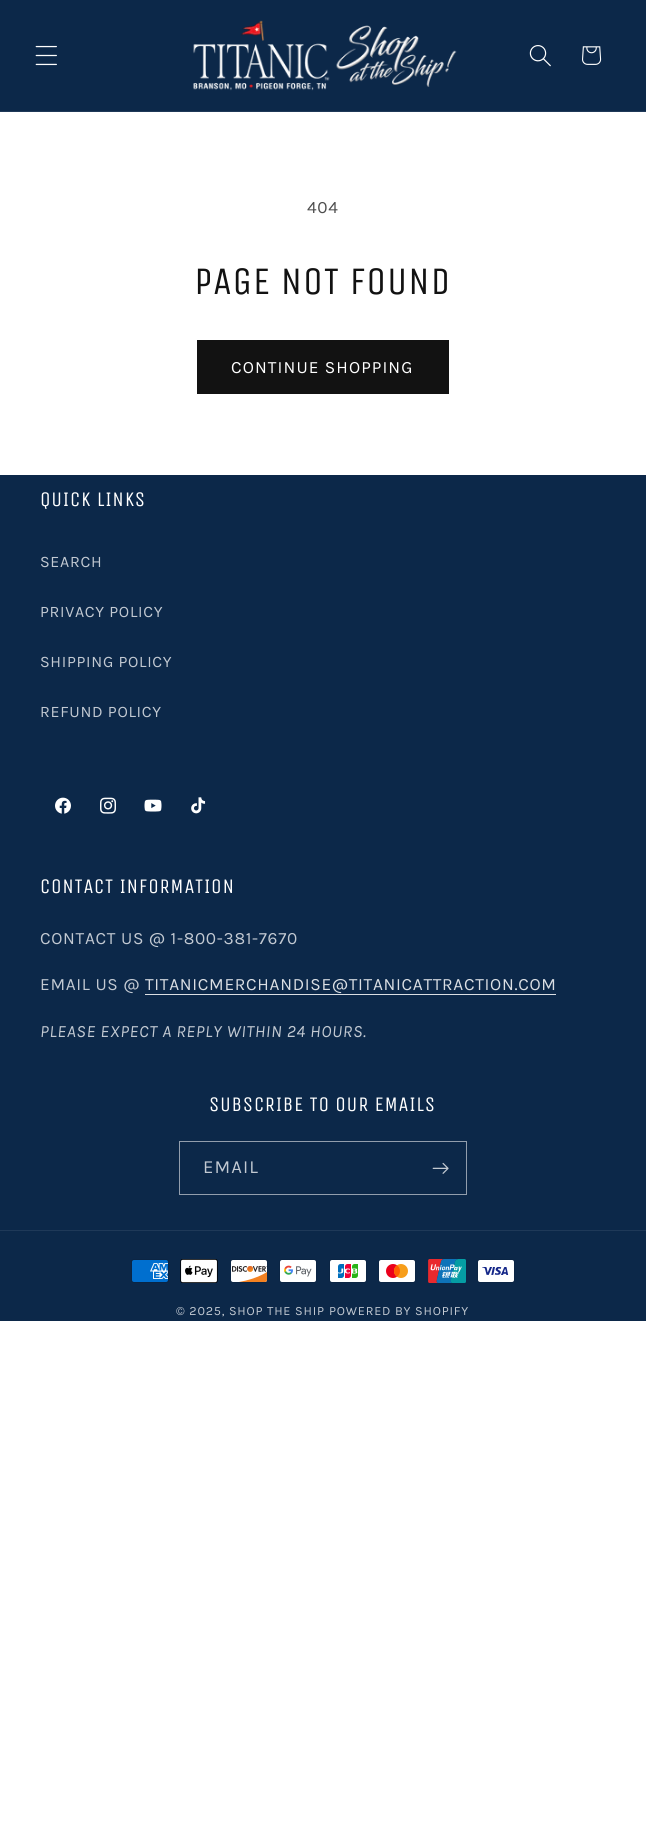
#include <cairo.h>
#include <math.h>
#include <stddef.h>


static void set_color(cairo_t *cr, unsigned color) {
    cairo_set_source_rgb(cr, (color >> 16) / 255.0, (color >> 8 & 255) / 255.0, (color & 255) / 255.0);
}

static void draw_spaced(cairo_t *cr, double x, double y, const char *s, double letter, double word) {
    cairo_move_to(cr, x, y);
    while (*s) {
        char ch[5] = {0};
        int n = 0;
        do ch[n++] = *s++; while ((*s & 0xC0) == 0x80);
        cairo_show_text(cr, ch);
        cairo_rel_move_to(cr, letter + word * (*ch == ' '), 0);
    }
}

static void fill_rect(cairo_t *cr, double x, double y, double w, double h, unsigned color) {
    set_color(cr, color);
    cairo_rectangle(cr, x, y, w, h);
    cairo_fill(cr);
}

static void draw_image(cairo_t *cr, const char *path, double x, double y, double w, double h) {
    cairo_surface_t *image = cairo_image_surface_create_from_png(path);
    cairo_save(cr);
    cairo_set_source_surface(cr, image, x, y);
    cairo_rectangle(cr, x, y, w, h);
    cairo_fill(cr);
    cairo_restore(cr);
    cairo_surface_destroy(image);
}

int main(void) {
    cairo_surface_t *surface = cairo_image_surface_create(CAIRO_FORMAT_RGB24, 646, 1842);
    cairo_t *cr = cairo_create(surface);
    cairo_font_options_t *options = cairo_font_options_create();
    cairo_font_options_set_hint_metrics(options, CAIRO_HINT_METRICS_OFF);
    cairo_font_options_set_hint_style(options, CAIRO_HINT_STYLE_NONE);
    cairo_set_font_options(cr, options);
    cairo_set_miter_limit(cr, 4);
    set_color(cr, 0xFFFFFF);
    cairo_paint(cr);
    fill_rect(cr, 0, 0, 646, 111, 0x0C2849);
    fill_rect(cr, 0, 111, 646, 1, 0x1F3958);
    draw_image(cr, "assets/img1.png", 35, 45, 22, 21);
    draw_image(cr, "assets/img2.png", 193, 20, 264, 71);
    draw_image(cr, "assets/img3.png", 529, 45, 22, 22);
    draw_image(cr, "assets/img4.png", 582, 46, 20, 19);
    cairo_select_font_face(cr, "Karla", CAIRO_FONT_SLANT_NORMAL, CAIRO_FONT_WEIGHT_NORMAL);
    cairo_set_font_size(cr, 17.25);
    set_color(cr, 0x4D4D4D);
    draw_spaced(cr, 307, 213, "404", 0.7, 0);
    cairo_select_font_face(cr, "Unica One", CAIRO_FONT_SLANT_NORMAL, CAIRO_FONT_WEIGHT_NORMAL);
    cairo_set_font_size(cr, 39);
    set_color(cr, 0x121212);
    draw_spaced(cr, 194, 294, "PAGE NOT FOUND", 0.75, 0);
    fill_rect(cr, 197, 340, 252, 54, 0x121212);
    cairo_select_font_face(cr, "Karla", CAIRO_FONT_SLANT_NORMAL, CAIRO_FONT_WEIGHT_NORMAL);
    cairo_set_font_size(cr, 17.25);
    set_color(cr, 0xFFFFFF);
    draw_spaced(cr, 231, 373, "CONTINUE SHOPPING", 1.1, 0);
    fill_rect(cr, 0, 475, 646, 846, 0x0C2849);
    cairo_select_font_face(cr, "Unica One", CAIRO_FONT_SLANT_NORMAL, CAIRO_FONT_WEIGHT_NORMAL);
    cairo_set_font_size(cr, 20.75);
    set_color(cr, 0xFFFFFF);
    draw_spaced(cr, 40, 506, "QUICK LINKS", 0.75, 0);
    cairo_select_font_face(cr, "Karla", CAIRO_FONT_SLANT_NORMAL, CAIRO_FONT_WEIGHT_NORMAL);
    cairo_set_font_size(cr, 16);
    set_color(cr, 0xC2C9D2);
    draw_spaced(cr, 40, 567, "SEARCH", 0.7, 0);
    draw_spaced(cr, 40, 617, "PRIVACY POLICY", 0.7, 0);
    draw_spaced(cr, 40, 667, "SHIPPING POLICY", 0.7, 0);
    draw_spaced(cr, 40, 717, "REFUND POLICY", 0.7, 0);
    draw_image(cr, "assets/img5.png", 55, 797, 16, 17);
    draw_image(cr, "assets/img6.png", 100, 797, 16, 17);
    draw_image(cr, "assets/img7.png", 144, 799, 18, 13);
    draw_image(cr, "assets/img8.png", 191, 797, 15, 17);
    cairo_select_font_face(cr, "Unica One", CAIRO_FONT_SLANT_NORMAL, CAIRO_FONT_WEIGHT_NORMAL);
    cairo_set_font_size(cr, 20.75);
    set_color(cr, 0xFFFFFF);
    draw_spaced(cr, 40, 893, "CONTACT INFORMATION", 0.75, 0);
    cairo_select_font_face(cr, "Karla", CAIRO_FONT_SLANT_NORMAL, CAIRO_FONT_WEIGHT_NORMAL);
    cairo_set_font_size(cr, 17.25);
    set_color(cr, 0xC2C9D2);
    draw_spaced(cr, 40, 944, "CONTACT US @ 1-800-381-7670", 0.7, 0);
    draw_spaced(cr, 40, 990, "EMAIL US @", 0.7, 0);
    set_color(cr, 0xDBDFE4);
    draw_spaced(cr, 145, 990, "TITANICMERCHANDISE@TITANICATTRACTION.COM", 0.7, 0);
    fill_rect(cr, 145, 994, 411, 1, 0xDBDFE4);
    cairo_select_font_face(cr, "Karla", CAIRO_FONT_SLANT_ITALIC, CAIRO_FONT_WEIGHT_NORMAL);
    set_color(cr, 0xC2C9D2);
    draw_spaced(cr, 40, 1037, "PLEASE EXPECT A REPLY WITHIN 24 HOURS.", 0.7, 0);
    cairo_select_font_face(cr, "Unica One", CAIRO_FONT_SLANT_NORMAL, CAIRO_FONT_WEIGHT_NORMAL);
    cairo_set_font_size(cr, 20.75);
    set_color(cr, 0xFFFFFF);
    draw_spaced(cr, 209, 1111, "SUBSCRIBE TO OUR EMAILS", 0.75, 0);
    cairo_rectangle(cr, 179.5, 1141.5, 287, 53);
    set_color(cr, 0x929EAD);
    cairo_set_line_width(cr, 1);
    cairo_stroke(cr);
    cairo_select_font_face(cr, "Karla", CAIRO_FONT_SLANT_NORMAL, CAIRO_FONT_WEIGHT_NORMAL);
    cairo_set_font_size(cr, 18.5);
    set_color(cr, 0xC2C9D2);
    draw_spaced(cr, 203, 1173, "EMAIL", 1.1, 0);
    draw_image(cr, "assets/img9.png", 432, 1162, 17, 12);
    fill_rect(cr, 0, 1230, 646, 1, 0x1F3958);
    draw_image(cr, "assets/img10.png", 131, 1259, 38, 24);
    draw_image(cr, "assets/img11.png", 180, 1259, 38, 24);
    draw_image(cr, "assets/img12.png", 230, 1259, 38, 24);
    draw_image(cr, "assets/img13.png", 279, 1259, 38, 24);
    draw_image(cr, "assets/img14.png", 329, 1259, 38, 24);
    draw_image(cr, "assets/img15.png", 378, 1259, 38, 24);
    draw_image(cr, "assets/img16.png", 428, 1259, 38, 24);
    draw_image(cr, "assets/img17.png", 477, 1259, 38, 24);
    cairo_set_font_size(cr, 12.6);
    set_color(cr, 0xC2C9D2);
    draw_spaced(cr, 176, 1315, "© 2025, SHOP THE SHIP", 0.8, 0);
    draw_spaced(cr, 329, 1315, "POWERED BY SHOPIFY", 0.8, 0);
    cairo_surface_write_to_png(surface, "output.png");
    cairo_font_options_destroy(options);
    cairo_destroy(cr);
    cairo_surface_destroy(surface);
    return 0;
}
